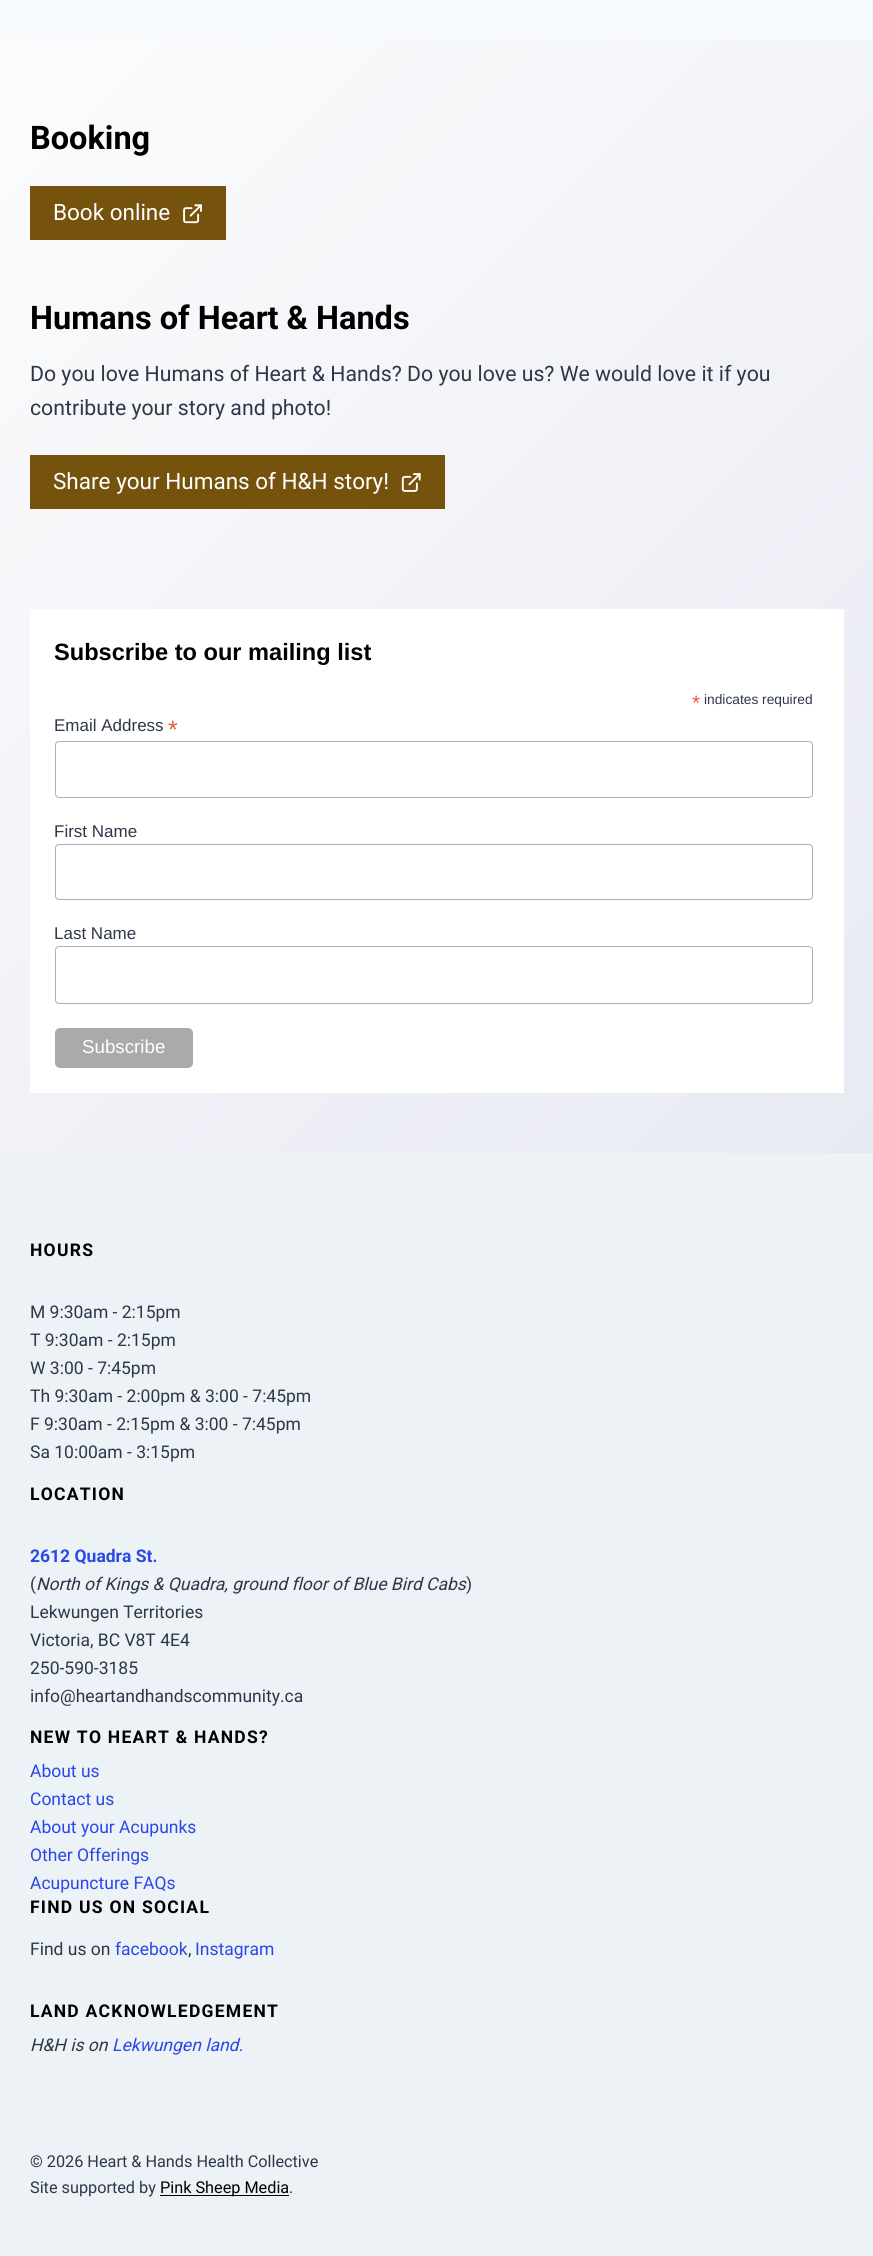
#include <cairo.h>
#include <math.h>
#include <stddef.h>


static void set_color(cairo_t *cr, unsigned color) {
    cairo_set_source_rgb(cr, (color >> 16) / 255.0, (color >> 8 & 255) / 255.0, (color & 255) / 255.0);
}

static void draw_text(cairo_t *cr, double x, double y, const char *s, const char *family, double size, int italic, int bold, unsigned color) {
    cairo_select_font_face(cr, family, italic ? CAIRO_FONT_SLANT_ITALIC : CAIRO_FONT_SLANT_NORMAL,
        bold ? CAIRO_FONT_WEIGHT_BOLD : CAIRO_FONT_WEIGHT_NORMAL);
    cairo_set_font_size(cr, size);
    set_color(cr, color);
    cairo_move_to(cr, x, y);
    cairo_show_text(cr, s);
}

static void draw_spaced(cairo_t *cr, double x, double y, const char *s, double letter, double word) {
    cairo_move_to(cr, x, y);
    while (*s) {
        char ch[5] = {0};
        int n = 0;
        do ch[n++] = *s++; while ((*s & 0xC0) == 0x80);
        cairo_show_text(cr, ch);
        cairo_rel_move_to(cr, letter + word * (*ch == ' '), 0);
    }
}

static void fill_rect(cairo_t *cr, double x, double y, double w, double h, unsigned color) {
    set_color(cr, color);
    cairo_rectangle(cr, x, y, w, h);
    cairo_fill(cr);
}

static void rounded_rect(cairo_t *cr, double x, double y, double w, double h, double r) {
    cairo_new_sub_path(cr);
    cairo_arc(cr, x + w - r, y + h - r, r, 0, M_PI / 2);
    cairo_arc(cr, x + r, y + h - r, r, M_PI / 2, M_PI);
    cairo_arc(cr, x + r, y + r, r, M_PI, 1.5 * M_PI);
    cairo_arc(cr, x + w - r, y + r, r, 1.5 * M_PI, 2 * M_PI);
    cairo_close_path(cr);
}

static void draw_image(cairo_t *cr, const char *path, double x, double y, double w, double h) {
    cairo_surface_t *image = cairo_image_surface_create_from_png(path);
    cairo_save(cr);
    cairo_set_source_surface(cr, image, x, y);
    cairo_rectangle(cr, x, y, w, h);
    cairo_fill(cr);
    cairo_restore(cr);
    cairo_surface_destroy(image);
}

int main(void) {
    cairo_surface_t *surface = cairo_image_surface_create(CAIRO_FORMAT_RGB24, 873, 2256);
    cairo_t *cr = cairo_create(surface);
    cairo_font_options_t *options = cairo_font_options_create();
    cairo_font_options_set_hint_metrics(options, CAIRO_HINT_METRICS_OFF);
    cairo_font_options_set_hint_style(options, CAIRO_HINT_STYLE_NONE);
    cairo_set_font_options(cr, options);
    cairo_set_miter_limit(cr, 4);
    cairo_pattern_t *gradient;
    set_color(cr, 0xF7FAFC);
    cairo_paint(cr);
    gradient = cairo_pattern_create_linear(-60, 100, 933, 1093);
    cairo_pattern_add_color_stop_rgba(gradient, 0, 0.988, 0.988, 0.992, 1);
    cairo_pattern_add_color_stop_rgba(gradient, 1, 0.91, 0.918, 0.953, 1);
    cairo_set_source(cr, gradient);
    cairo_pattern_destroy(gradient);
    cairo_rectangle(cr, 0, 40, 873, 1113);
    cairo_fill(cr);
    draw_text(cr, 30, 149, "Booking", "Roboto", 32.5, 0, 1, 0x000000);
    fill_rect(cr, 30, 186, 196, 54, 0x76530D);
    draw_text(cr, 53, 220, "Book online", "Roboto", 22.5, 0, 0, 0xFFFFFF);
    draw_image(cr, "assets/img1.png", 183, 204, 19, 20);
    draw_text(cr, 30, 329, "Humans of Heart & Hands", "Roboto", 32.5, 0, 1, 0x000000);
    draw_text(cr, 30, 381, "Do you love Humans of Heart & Hands? Do you love us? We would love it if you", "Roboto", 21.25, 0, 0, 0x2D3748);
    draw_text(cr, 30, 415, "contribute your story and photo!", "Roboto", 21.25, 0, 0, 0x2D3748);
    fill_rect(cr, 30, 455, 415, 54, 0x76530D);
    draw_text(cr, 53, 489, "Share your Humans of H&H story!", "Roboto", 22.5, 0, 0, 0xFFFFFF);
    draw_image(cr, "assets/img2.png", 401, 473, 20, 19);
    fill_rect(cr, 30, 609, 814, 484, 0xFFFFFF);
    draw_text(cr, 54, 660, "Subscribe to our mailing list", "Liberation Sans", 23.6, 0, 1, 0x000000);
    draw_text(cr, 692, 710, "*", "Liberation Sans", 21, 0, 0, 0xE85C41);
    draw_text(cr, 704, 704, "indicates required", "Liberation Sans", 13.75, 0, 0, 0x2D3748);
    draw_text(cr, 54, 731, "Email Address", "Liberation Sans", 17, 0, 0, 0x2D3748);
    draw_text(cr, 168, 738, "*", "Liberation Sans", 25, 0, 0, 0xE85C41);
    rounded_rect(cr, 55.5, 741.5, 757, 56, 3.5);
    set_color(cr, 0xABB0B2);
    cairo_set_line_width(cr, 1);
    cairo_stroke(cr);
    draw_text(cr, 54, 837, "First Name", "Liberation Sans", 17, 0, 0, 0x2D3748);
    rounded_rect(cr, 55.5, 844.5, 757, 55, 3.5);
    set_color(cr, 0xABB0B2);
    cairo_stroke(cr);
    draw_text(cr, 54, 939, "Last Name", "Liberation Sans", 17, 0, 0, 0x2D3748);
    rounded_rect(cr, 55.5, 946.5, 757, 57, 3.5);
    set_color(cr, 0xABB0B2);
    cairo_stroke(cr);
    set_color(cr, 0xAAAAAA);
    rounded_rect(cr, 55, 1028, 138, 40, 5);
    cairo_fill(cr);
    draw_text(cr, 82, 1053, "Subscribe", "Liberation Sans", 18.75, 0, 0, 0xFFFFFF);
    fill_rect(cr, 0, 1153, 873, 1103, 0xEDF2F7);
    cairo_select_font_face(cr, "Roboto", CAIRO_FONT_SLANT_NORMAL, CAIRO_FONT_WEIGHT_BOLD);
    cairo_set_font_size(cr, 17.5);
    set_color(cr, 0x000000);
    draw_spaced(cr, 30, 1256, "HOURS", 1.25, 0);
    draw_text(cr, 30, 1318, "M 9:30am - 2:15pm", "Roboto", 17.5, 0, 0, 0x2D3748);
    draw_text(cr, 30, 1346, "T 9:30am - 2:15pm", "Roboto", 17.5, 0, 0, 0x2D3748);
    draw_text(cr, 30, 1374, "W 3:00 - 7:45pm", "Roboto", 17.5, 0, 0, 0x2D3748);
    draw_text(cr, 30, 1402, "Th 9:30am - 2:00pm & 3:00 - 7:45pm", "Roboto", 17.5, 0, 0, 0x2D3748);
    draw_text(cr, 30, 1430, "F 9:30am - 2:15pm & 3:00 - 7:45pm", "Roboto", 17.5, 0, 0, 0x2D3748);
    draw_text(cr, 30, 1458, "Sa 10:00am - 3:15pm", "Roboto", 17.5, 0, 0, 0x2D3748);
    cairo_select_font_face(cr, "Roboto", CAIRO_FONT_SLANT_NORMAL, CAIRO_FONT_WEIGHT_BOLD);
    set_color(cr, 0x000000);
    draw_spaced(cr, 30, 1500, "LOCATION", 1.25, 0);
    draw_text(cr, 30, 1562, "2612 Quadra St.", "Roboto", 17.5, 0, 1, 0x2A48E7);
    draw_text(cr, 30, 1590, "(", "Roboto", 17.5, 0, 0, 0x2D3748);
    draw_text(cr, 36, 1590, "North of Kings & Quadra, ground floor of Blue Bird Cabs", "Roboto", 17.5, 1, 0, 0x2D3748);
    draw_text(cr, 466, 1590, ")", "Roboto", 17.5, 0, 0, 0x2D3748);
    draw_text(cr, 30, 1618, "Lekwungen Territories", "Roboto", 17.5, 0, 0, 0x2D3748);
    draw_text(cr, 30, 1646, "Victoria, BC V8T 4E4", "Roboto", 17.5, 0, 0, 0x2D3748);
    draw_text(cr, 30, 1674, "250-590-3185", "Roboto", 17.5, 0, 0, 0x2D3748);
    draw_text(cr, 30, 1702, "info@heartandhandscommunity.ca", "Roboto", 17.5, 0, 0, 0x2D3748);
    cairo_select_font_face(cr, "Roboto", CAIRO_FONT_SLANT_NORMAL, CAIRO_FONT_WEIGHT_BOLD);
    set_color(cr, 0x000000);
    draw_spaced(cr, 30, 1743, "NEW TO HEART & HANDS?", 1.25, 0);
    draw_text(cr, 30, 1777, "About us", "Roboto", 17.5, 0, 0, 0x2A48E7);
    draw_text(cr, 30, 1805, "Contact us", "Roboto", 17.5, 0, 0, 0x2A48E7);
    draw_text(cr, 30, 1833, "About your Acupunks", "Roboto", 17.5, 0, 0, 0x2A48E7);
    draw_text(cr, 30, 1861, "Other Offerings", "Roboto", 17.5, 0, 0, 0x2A48E7);
    draw_text(cr, 30, 1889, "Acupuncture FAQs", "Roboto", 17.5, 0, 0, 0x2A48E7);
    cairo_select_font_face(cr, "Roboto", CAIRO_FONT_SLANT_NORMAL, CAIRO_FONT_WEIGHT_BOLD);
    set_color(cr, 0x000000);
    draw_spaced(cr, 30, 1913, "FIND US ON SOCIAL", 1.25, 0);
    draw_text(cr, 30, 1955, "Find us on", "Roboto", 17.5, 0, 0, 0x2D3748);
    draw_text(cr, 115, 1955, "facebook", "Roboto", 17.5, 0, 0, 0x2A48E7);
    draw_text(cr, 188, 1955, ",", "Roboto", 17.5, 0, 0, 0x2D3748);
    draw_text(cr, 195, 1955, "Instagram", "Roboto", 17.5, 0, 0, 0x2A48E7);
    cairo_select_font_face(cr, "Roboto", CAIRO_FONT_SLANT_NORMAL, CAIRO_FONT_WEIGHT_BOLD);
    set_color(cr, 0x000000);
    draw_spaced(cr, 30, 2017, "LAND ACKNOWLEDGEMENT", 1.25, 0);
    draw_text(cr, 30, 2051, "H&H is on", "Roboto", 17.5, 1, 0, 0x2D3748);
    draw_text(cr, 112, 2051, "Lekwungen land.", "Roboto", 17.5, 1, 0, 0x2A48E7);
    draw_text(cr, 30, 2167, "© 2026 Heart & Hands Health Collective", "Roboto", 16.25, 0, 0, 0x2D3748);
    draw_text(cr, 30, 2193, "Site supported by", "Roboto", 16.25, 0, 0, 0x2D3748);
    fill_rect(cr, 160, 2195, 129, 1, 0x000000);
    draw_text(cr, 160, 2193, "Pink Sheep Media", "Roboto", 16.25, 0, 0, 0x000000);
    draw_text(cr, 289, 2193, ".", "Roboto", 16.25, 0, 0, 0x2D3748);
    cairo_surface_write_to_png(surface, "output.png");
    cairo_font_options_destroy(options);
    cairo_destroy(cr);
    cairo_surface_destroy(surface);
    return 0;
}
